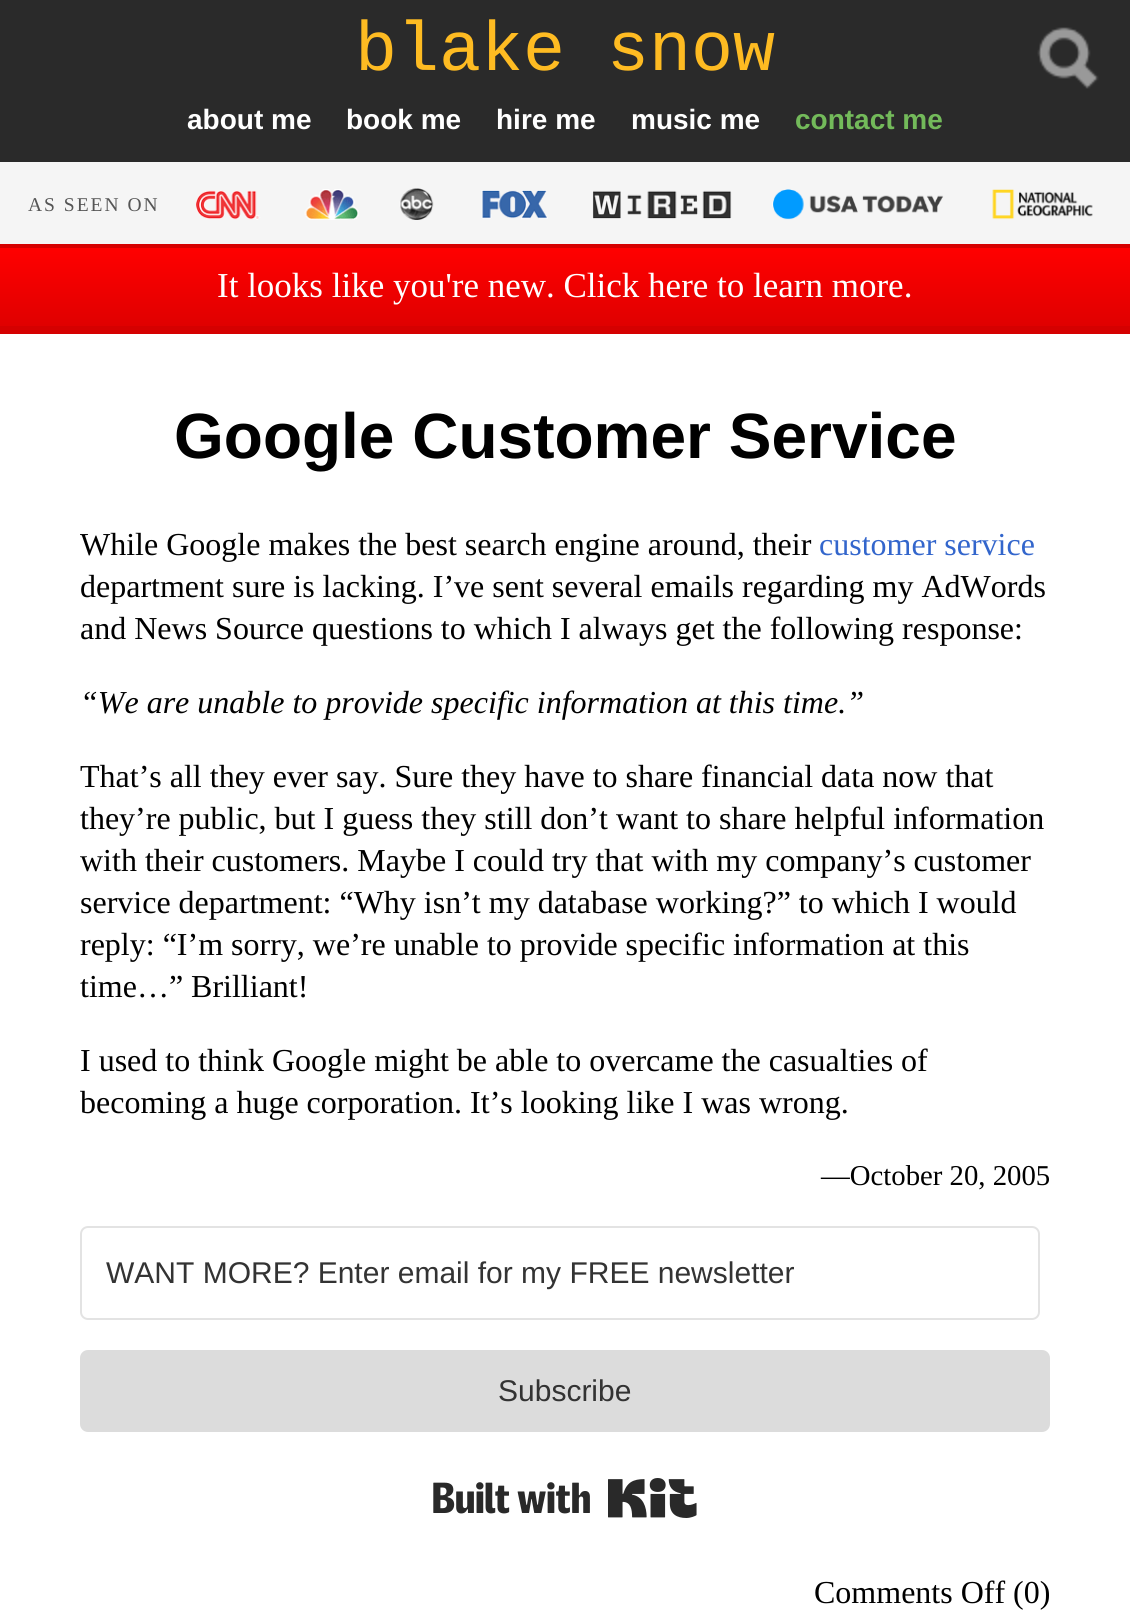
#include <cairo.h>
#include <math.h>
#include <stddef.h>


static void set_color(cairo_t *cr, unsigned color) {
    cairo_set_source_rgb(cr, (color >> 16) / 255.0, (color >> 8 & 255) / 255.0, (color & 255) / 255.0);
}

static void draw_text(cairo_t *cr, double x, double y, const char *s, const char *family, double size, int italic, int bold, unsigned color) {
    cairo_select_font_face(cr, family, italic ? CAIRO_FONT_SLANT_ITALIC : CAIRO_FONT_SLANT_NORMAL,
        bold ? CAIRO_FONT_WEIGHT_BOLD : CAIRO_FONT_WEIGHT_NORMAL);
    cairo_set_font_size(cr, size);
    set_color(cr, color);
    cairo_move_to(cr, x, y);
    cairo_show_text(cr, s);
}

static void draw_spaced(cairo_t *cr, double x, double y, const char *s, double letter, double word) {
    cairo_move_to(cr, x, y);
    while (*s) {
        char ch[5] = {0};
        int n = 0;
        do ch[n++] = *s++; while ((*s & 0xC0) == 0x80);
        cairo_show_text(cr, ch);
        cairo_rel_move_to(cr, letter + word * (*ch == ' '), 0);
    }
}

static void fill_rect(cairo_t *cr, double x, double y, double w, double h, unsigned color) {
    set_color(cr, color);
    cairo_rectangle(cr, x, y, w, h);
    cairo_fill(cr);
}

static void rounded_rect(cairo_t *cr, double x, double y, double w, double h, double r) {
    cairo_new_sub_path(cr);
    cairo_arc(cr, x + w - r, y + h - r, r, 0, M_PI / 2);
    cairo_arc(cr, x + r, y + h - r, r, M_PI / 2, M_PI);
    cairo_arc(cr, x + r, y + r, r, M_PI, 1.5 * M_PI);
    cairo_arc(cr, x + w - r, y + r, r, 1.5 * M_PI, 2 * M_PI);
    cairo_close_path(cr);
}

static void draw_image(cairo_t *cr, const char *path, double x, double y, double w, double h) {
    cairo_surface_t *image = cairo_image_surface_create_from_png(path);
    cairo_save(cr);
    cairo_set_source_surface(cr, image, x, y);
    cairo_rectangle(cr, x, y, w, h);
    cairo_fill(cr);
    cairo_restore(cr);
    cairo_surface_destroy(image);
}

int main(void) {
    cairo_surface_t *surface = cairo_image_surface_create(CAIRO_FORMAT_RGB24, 1130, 1618);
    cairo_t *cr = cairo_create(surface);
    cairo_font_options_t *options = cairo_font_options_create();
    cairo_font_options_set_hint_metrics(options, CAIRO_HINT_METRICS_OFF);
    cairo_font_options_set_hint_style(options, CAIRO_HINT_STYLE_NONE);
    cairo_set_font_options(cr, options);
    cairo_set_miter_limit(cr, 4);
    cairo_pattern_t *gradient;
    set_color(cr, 0x2A2A2A);
    cairo_paint(cr);
    draw_text(cr, 355, 70, "blake snow", "Liberation Mono", 70, 0, 0, 0xFEBB22);
    draw_image(cr, "assets/img1.png", 1037, 27, 62, 62);
    draw_text(cr, 187, 129, "about me", "Liberation Sans", 28, 0, 1, 0xFFFFFF);
    draw_text(cr, 346, 129, "book me", "Liberation Sans", 28, 0, 1, 0xFFFFFF);
    draw_text(cr, 496, 129, "hire me", "Liberation Sans", 28, 0, 1, 0xFFFFFF);
    draw_text(cr, 631, 129, "music me", "Liberation Sans", 28, 0, 1, 0xFFFFFF);
    draw_text(cr, 795, 129, "contact me", "Liberation Sans", 28, 0, 1, 0x73BA5A);
    fill_rect(cr, 0, 162, 1130, 82, 0xF5F5F5);
    cairo_select_font_face(cr, "Liberation Serif", CAIRO_FONT_SLANT_NORMAL, CAIRO_FONT_WEIGHT_NORMAL);
    cairo_set_font_size(cr, 19.5);
    set_color(cr, 0x555555);
    draw_spaced(cr, 28, 211, "AS SEEN ON", 2, 0);
    draw_image(cr, "assets/img2.png", 196, 188, 897, 32);
    gradient = cairo_pattern_create_linear(565, 248, 565, 326);
    cairo_pattern_add_color_stop_rgba(gradient, 0, 1, 0, 0, 1);
    cairo_pattern_add_color_stop_rgba(gradient, 1, 0.878, 0, 0, 1);
    cairo_set_source(cr, gradient);
    cairo_pattern_destroy(gradient);
    cairo_rectangle(cr, 0, 248, 1130, 78);
    cairo_fill(cr);
    fill_rect(cr, 0, 244, 1130, 4, 0xD50000);
    fill_rect(cr, 0, 326, 1130, 8, 0xD50000);
    draw_text(cr, 217, 297, "It looks like you're new. Click here to learn more.", "Liberation Serif", 35, 0, 0, 0xFFFFFF);
    fill_rect(cr, 0, 334, 1130, 1284, 0xFFFFFF);
    draw_text(cr, 174, 458, "Google Customer Service", "Liberation Sans", 64, 0, 1, 0x000000);
    draw_text(cr, 80, 555, "While Google makes the best search engine around, their", "Liberation Serif", 32, 0, 0, 0x000000);
    draw_text(cr, 819, 555, "customer service", "Liberation Serif", 32, 0, 0, 0x3366CC);
    draw_text(cr, 80, 597, "department sure is lacking. I’ve sent several emails regarding my AdWords", "Liberation Serif", 32, 0, 0, 0x000000);
    draw_text(cr, 80, 639, "and News Source questions to which I always get the following response:", "Liberation Serif", 32, 0, 0, 0x000000);
    draw_text(cr, 80, 713, "“We are unable to provide specific information at this time.”", "Liberation Serif", 32, 1, 0, 0x000000);
    draw_text(cr, 80, 787, "That’s all they ever say. Sure they have to share financial data now that", "Liberation Serif", 32, 0, 0, 0x000000);
    draw_text(cr, 80, 829, "they’re public, but I guess they still don’t want to share helpful information", "Liberation Serif", 32, 0, 0, 0x000000);
    draw_text(cr, 80, 871, "with their customers. Maybe I could try that with my company’s customer", "Liberation Serif", 32, 0, 0, 0x000000);
    draw_text(cr, 80, 913, "service department: “Why isn’t my database working?” to which I would", "Liberation Serif", 32, 0, 0, 0x000000);
    draw_text(cr, 80, 955, "reply: “I’m sorry, we’re unable to provide specific information at this", "Liberation Serif", 32, 0, 0, 0x000000);
    draw_text(cr, 80, 997, "time…” Brilliant!", "Liberation Serif", 32, 0, 0, 0x000000);
    draw_text(cr, 80, 1071, "I used to think Google might be able to overcame the casualties of", "Liberation Serif", 32, 0, 0, 0x000000);
    draw_text(cr, 80, 1113, "becoming a huge corporation. It’s looking like I was wrong.", "Liberation Serif", 32, 0, 0, 0x000000);
    draw_text(cr, 821, 1185, "—October 20, 2005", "Liberation Serif", 28.75, 0, 0, 0x000000);
    rounded_rect(cr, 81, 1227, 958, 92, 7);
    set_color(cr, 0xE3E3E3);
    cairo_stroke(cr);
    draw_text(cr, 106, 1283, "WANT MORE? Enter email for my FREE newsletter", "Liberation Sans", 30, 0, 0, 0x333333);
    set_color(cr, 0xDCDCDC);
    rounded_rect(cr, 80, 1350, 970, 82, 8);
    cairo_fill(cr);
    draw_text(cr, 498, 1401, "Subscribe", "Liberation Sans", 30, 0, 0, 0x333333);
    draw_image(cr, "assets/img3.png", 433, 1478, 264, 40);
    draw_text(cr, 814, 1603, "Comments Off (0)", "Liberation Serif", 32, 0, 0, 0x000000);
    cairo_surface_write_to_png(surface, "output.png");
    cairo_font_options_destroy(options);
    cairo_destroy(cr);
    cairo_surface_destroy(surface);
    return 0;
}
